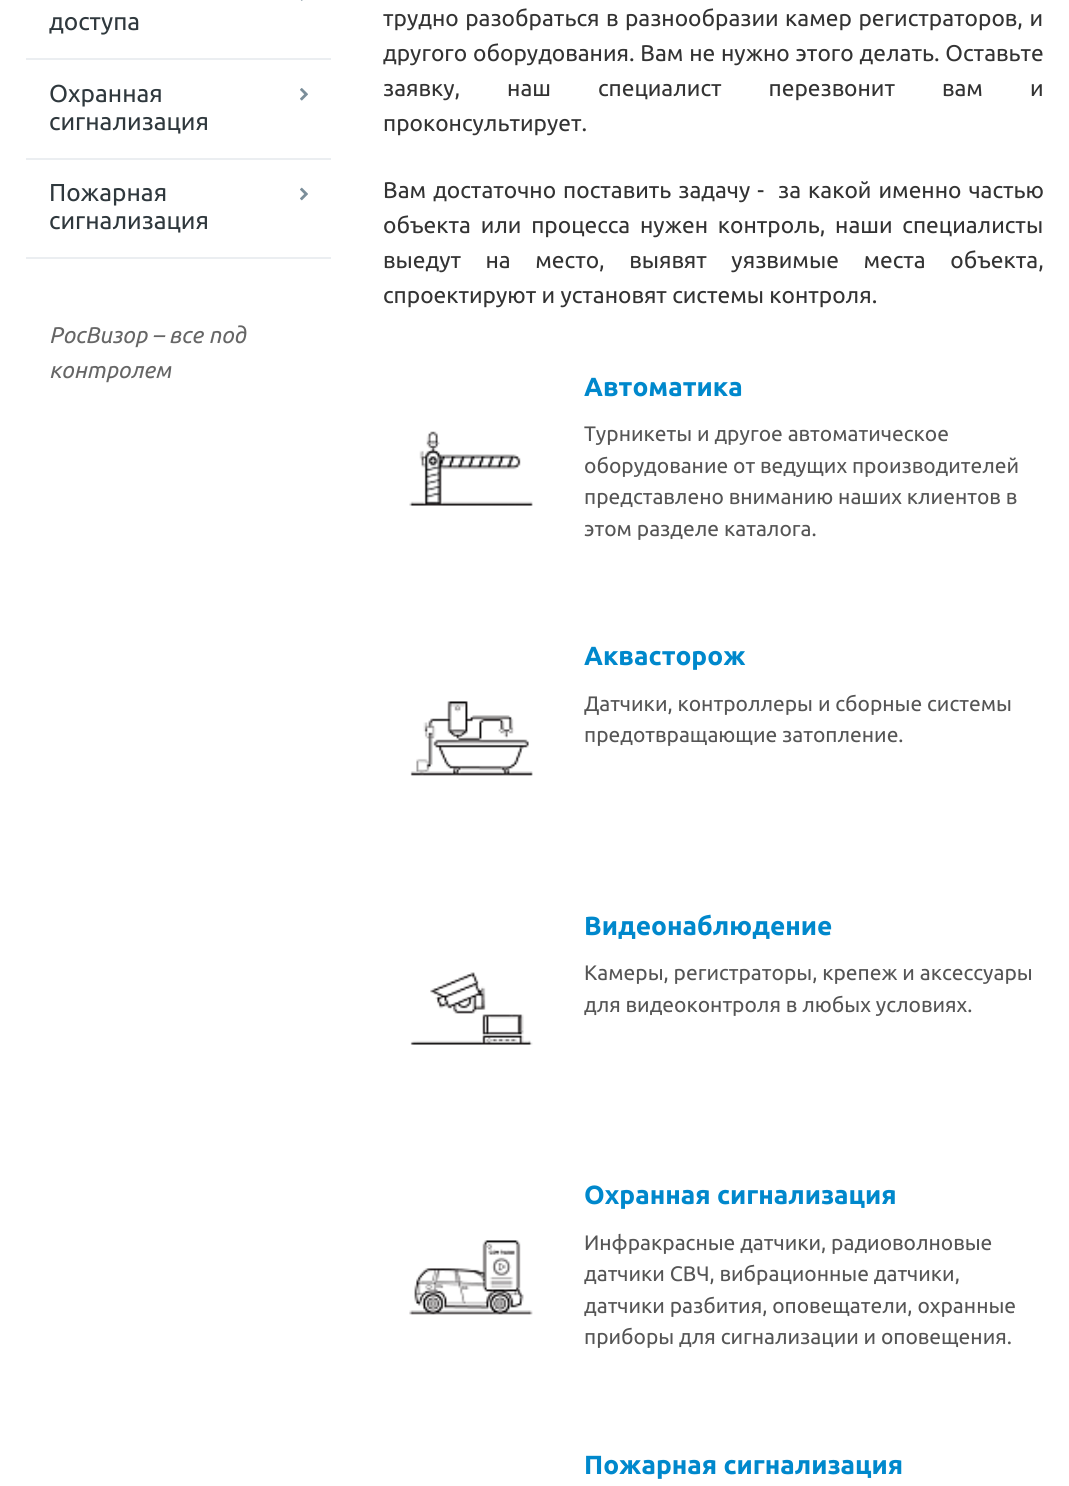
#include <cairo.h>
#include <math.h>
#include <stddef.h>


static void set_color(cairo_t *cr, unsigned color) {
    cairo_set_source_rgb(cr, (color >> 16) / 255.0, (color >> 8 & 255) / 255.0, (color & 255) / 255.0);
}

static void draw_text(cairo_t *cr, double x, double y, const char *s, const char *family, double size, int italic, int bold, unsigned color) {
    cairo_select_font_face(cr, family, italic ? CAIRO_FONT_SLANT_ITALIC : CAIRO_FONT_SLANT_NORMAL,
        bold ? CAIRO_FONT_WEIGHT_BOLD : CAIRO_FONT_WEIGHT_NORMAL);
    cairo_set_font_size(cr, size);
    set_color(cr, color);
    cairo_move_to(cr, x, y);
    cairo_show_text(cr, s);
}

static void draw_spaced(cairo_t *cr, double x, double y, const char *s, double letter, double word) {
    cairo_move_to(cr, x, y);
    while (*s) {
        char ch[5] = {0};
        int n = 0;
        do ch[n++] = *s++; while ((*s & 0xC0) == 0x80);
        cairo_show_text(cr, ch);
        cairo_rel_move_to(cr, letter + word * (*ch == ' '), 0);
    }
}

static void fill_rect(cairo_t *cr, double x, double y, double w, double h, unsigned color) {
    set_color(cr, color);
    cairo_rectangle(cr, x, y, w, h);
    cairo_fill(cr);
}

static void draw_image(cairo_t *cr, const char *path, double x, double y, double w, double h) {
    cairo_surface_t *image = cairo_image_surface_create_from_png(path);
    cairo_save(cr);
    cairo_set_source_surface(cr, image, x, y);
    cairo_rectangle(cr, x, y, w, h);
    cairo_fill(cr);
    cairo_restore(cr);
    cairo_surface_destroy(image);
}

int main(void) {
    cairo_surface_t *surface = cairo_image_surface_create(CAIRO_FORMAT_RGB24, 1069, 1486);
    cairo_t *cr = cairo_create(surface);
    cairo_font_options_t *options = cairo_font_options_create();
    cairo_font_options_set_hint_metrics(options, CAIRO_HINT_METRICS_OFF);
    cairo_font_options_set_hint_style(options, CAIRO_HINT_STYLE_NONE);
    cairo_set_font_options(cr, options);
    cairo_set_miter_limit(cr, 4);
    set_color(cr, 0xFFFFFF);
    cairo_paint(cr);
    fill_rect(cr, 26, 257, 305, 2, 0xEBEEF1);
    draw_image(cr, "assets/img1.png", 300, 0, 3, 1);
    draw_text(cr, 49, 30, "доступа", "Ubuntu", 24.5, 0, 0, 0x2F383D);
    fill_rect(cr, 26, 58, 305, 2, 0xEBEEF1);
    draw_text(cr, 49, 102, "Охранная", "Ubuntu", 24.5, 0, 0, 0x2F383D);
    draw_image(cr, "assets/img2.png", 300, 88, 8, 13);
    draw_text(cr, 49, 130, "сигнализация", "Ubuntu", 24.5, 0, 0, 0x2F383D);
    fill_rect(cr, 26, 158, 305, 2, 0xEBEEF1);
    draw_text(cr, 49, 201, "Пожарная", "Ubuntu", 24.5, 0, 0, 0x2F383D);
    draw_image(cr, "assets/img3.png", 300, 187, 8, 14);
    draw_text(cr, 49, 229, "сигнализация", "Ubuntu", 24.5, 0, 0, 0x2F383D);
    draw_text(cr, 49, 343, "РосВизор – все под", "Ubuntu", 22.75, 1, 0, 0x666666);
    draw_text(cr, 49, 378, "контролем", "Ubuntu", 22.75, 1, 0, 0x666666);
    cairo_select_font_face(cr, "Ubuntu", CAIRO_FONT_SLANT_NORMAL, CAIRO_FONT_WEIGHT_NORMAL);
    set_color(cr, 0x333333);
    draw_spaced(cr, 383, 26, "трудно разобраться в разнообразии камер регистраторов, и", 0, 1.25);
    draw_spaced(cr, 383, 61, "другого оборудования. Вам не нужно этого делать. Оставьте", 0, 0.5);
    draw_spaced(cr, 383, 96, "заявку, наш специалист перезвонит вам и", 0, 41.75);
    draw_text(cr, 383, 131, "проконсультирует.", "Ubuntu", 22.75, 0, 0, 0x333333);
    draw_spaced(cr, 383, 198, "Вам достаточно поставить задачу -  за какой именно частью", 0, 1.75);
    draw_spaced(cr, 383, 233, "объекта или процесса нужен контроль, наши специалисты", 0, 4.5);
    draw_spaced(cr, 383, 268, "выедут на место, выявят уязвимые места объекта,", 0, 19.25);
    draw_text(cr, 383, 303, "спроектируют и установят системы контроля.", "Ubuntu", 22.75, 0, 0, 0x333333);
    draw_image(cr, "assets/img4.png", 409, 431, 124, 75);
    draw_text(cr, 584, 396, "Автоматика", "Ubuntu", 26.25, 0, 1, 0x0088CC);
    draw_text(cr, 584, 441, "Турникеты и другое автоматическое", "Ubuntu", 21, 0, 0, 0x555555);
    draw_text(cr, 584, 473, "оборудование от ведущих производителей", "Ubuntu", 21, 0, 0, 0x555555);
    draw_text(cr, 584, 504, "представлено вниманию наших клиентов в", "Ubuntu", 21, 0, 0, 0x555555);
    draw_text(cr, 584, 536, "этом разделе каталога.", "Ubuntu", 21, 0, 0, 0x555555);
    draw_image(cr, "assets/img5.png", 410, 701, 123, 75);
    draw_text(cr, 584, 665, "Аквасторож", "Ubuntu", 26.25, 0, 1, 0x0088CC);
    draw_text(cr, 584, 711, "Датчики, контроллеры и сборные системы", "Ubuntu", 21, 0, 0, 0x555555);
    draw_text(cr, 584, 742, "предотвращающие затопление.", "Ubuntu", 21, 0, 0, 0x555555);
    draw_image(cr, "assets/img6.png", 410, 972, 123, 73);
    draw_text(cr, 584, 935, "Видеонаблюдение", "Ubuntu", 26.25, 0, 1, 0x0088CC);
    draw_text(cr, 584, 980, "Камеры, регистраторы, крепеж и аксессуары", "Ubuntu", 21, 0, 0, 0x555555);
    draw_text(cr, 584, 1012, "для видеоконтроля в любых условиях.", "Ubuntu", 21, 0, 0, 0x555555);
    draw_image(cr, "assets/img7.png", 409, 1240, 124, 75);
    draw_text(cr, 584, 1204, "Охранная сигнализация", "Ubuntu", 26.25, 0, 1, 0x0088CC);
    draw_text(cr, 584, 1250, "Инфракрасные датчики, радиоволновые", "Ubuntu", 21, 0, 0, 0x555555);
    draw_text(cr, 584, 1281, "датчики СВЧ, вибрационные датчики,", "Ubuntu", 21, 0, 0, 0x555555);
    draw_text(cr, 584, 1313, "датчики разбития, оповещатели, охранные", "Ubuntu", 21, 0, 0, 0x555555);
    draw_text(cr, 584, 1344, "приборы для сигнализации и оповещения.", "Ubuntu", 21, 0, 0, 0x555555);
    draw_text(cr, 584, 1474, "Пожарная сигнализация", "Ubuntu", 26.25, 0, 1, 0x0088CC);
    cairo_surface_write_to_png(surface, "output.png");
    cairo_font_options_destroy(options);
    cairo_destroy(cr);
    cairo_surface_destroy(surface);
    return 0;
}
